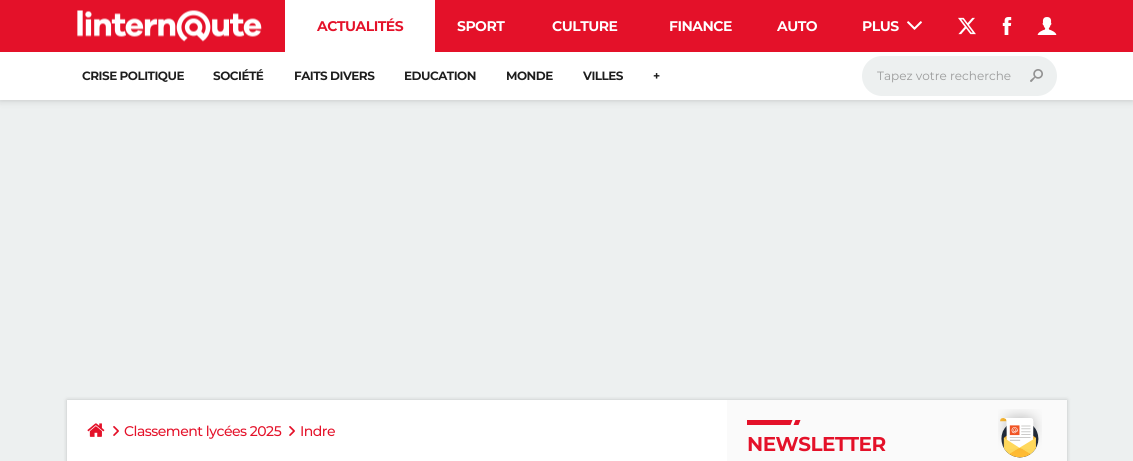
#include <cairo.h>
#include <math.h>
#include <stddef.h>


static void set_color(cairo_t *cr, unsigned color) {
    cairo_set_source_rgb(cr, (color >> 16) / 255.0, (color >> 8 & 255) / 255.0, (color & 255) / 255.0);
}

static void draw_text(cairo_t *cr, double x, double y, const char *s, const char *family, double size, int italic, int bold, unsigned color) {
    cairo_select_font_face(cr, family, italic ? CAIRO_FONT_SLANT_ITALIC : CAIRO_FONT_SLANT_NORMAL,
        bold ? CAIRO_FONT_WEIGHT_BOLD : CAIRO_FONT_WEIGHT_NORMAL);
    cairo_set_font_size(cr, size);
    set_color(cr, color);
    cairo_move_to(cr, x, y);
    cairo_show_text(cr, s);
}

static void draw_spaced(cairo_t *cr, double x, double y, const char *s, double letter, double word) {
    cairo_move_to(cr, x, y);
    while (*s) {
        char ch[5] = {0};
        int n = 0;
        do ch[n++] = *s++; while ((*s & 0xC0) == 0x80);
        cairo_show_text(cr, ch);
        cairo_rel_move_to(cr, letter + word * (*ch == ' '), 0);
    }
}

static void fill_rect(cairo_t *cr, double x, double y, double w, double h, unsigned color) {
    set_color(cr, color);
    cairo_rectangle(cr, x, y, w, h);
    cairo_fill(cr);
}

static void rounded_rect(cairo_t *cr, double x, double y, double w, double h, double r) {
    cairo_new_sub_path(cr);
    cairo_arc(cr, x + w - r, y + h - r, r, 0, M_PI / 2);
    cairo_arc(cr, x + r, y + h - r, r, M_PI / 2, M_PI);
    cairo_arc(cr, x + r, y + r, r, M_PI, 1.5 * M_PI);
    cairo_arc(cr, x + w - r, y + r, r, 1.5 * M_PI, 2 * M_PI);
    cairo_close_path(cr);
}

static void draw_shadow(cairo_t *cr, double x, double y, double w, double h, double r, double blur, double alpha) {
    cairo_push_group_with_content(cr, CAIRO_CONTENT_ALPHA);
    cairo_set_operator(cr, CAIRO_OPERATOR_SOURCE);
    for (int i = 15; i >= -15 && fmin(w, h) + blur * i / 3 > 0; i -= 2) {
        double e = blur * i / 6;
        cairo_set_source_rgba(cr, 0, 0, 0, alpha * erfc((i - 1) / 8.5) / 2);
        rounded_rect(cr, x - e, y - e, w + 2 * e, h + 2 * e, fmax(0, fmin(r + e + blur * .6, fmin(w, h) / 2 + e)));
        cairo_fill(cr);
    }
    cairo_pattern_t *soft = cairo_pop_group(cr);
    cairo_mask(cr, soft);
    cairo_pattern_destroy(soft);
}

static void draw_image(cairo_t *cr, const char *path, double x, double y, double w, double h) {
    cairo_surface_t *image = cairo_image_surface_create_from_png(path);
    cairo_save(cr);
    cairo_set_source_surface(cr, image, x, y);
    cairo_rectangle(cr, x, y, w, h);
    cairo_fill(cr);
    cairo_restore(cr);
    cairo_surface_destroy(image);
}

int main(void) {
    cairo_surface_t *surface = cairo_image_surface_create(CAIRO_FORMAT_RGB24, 1133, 461);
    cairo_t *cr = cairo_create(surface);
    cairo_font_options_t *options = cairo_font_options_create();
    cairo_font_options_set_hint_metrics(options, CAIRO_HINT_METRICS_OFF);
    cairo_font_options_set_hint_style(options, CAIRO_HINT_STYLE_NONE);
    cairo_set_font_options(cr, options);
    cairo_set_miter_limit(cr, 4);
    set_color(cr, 0xEDF0F0);
    cairo_paint(cr);
    set_color(cr, 0x000000);
    draw_shadow(cr, 0, 0, 1133, 100, 0, 4, 0.2);
    fill_rect(cr, 0, 0, 1133, 52, 0xE41129);
    draw_image(cr, "assets/img1.png", 77, 10, 185, 32);
    fill_rect(cr, 285, 0, 150, 52, 0xFFFFFF);
    cairo_select_font_face(cr, "Montserrat", CAIRO_FONT_SLANT_NORMAL, CAIRO_FONT_WEIGHT_BOLD);
    cairo_set_font_size(cr, 14);
    set_color(cr, 0xE41129);
    draw_spaced(cr, 317, 31, "ACTUALITÉS", -0.5, 0);
    set_color(cr, 0xFFFFFF);
    draw_spaced(cr, 457, 31, "SPORT", -0.5, 0);
    draw_spaced(cr, 552, 31, "CULTURE", -0.5, 0);
    draw_spaced(cr, 669, 31, "FINANCE", -0.5, 0);
    draw_spaced(cr, 777, 31, "AUTO", -0.5, 0);
    draw_spaced(cr, 862, 31, "PLUS", -0.5, 0);
    draw_image(cr, "assets/img2.png", 907, 21, 15, 9);
    draw_image(cr, "assets/img3.png", 958, 17, 18, 18);
    draw_image(cr, "assets/img4.png", 1002, 17, 10, 18);
    draw_image(cr, "assets/img5.png", 1037, 17, 20, 18);
    fill_rect(cr, 0, 52, 1133, 48, 0xFFFFFF);
    cairo_set_font_size(cr, 12);
    set_color(cr, 0x1D1D1D);
    draw_spaced(cr, 82, 80, "CRISE POLITIQUE", -0.5, 0);
    draw_spaced(cr, 213, 80, "SOCIÉTÉ", -0.5, 0);
    draw_spaced(cr, 294, 80, "FAITS DIVERS", -0.5, 0);
    draw_spaced(cr, 404, 80, "EDUCATION", -0.5, 0);
    draw_spaced(cr, 506, 80, "MONDE", -0.5, 0);
    draw_spaced(cr, 583, 80, "VILLES", -0.5, 0);
    draw_spaced(cr, 653, 80, "+", -0.5, 0);
    set_color(cr, 0xEDF0F0);
    rounded_rect(cr, 862, 56, 195, 40, 20);
    cairo_fill(cr);
    draw_text(cr, 877, 80, "Tapez votre recherche", "Montserrat", 12, 0, 0, 0x9D9E9E);
    draw_image(cr, "assets/img6.png", 1030, 69, 13, 13);
    set_color(cr, 0x000000);
    draw_shadow(cr, 67, 400, 1000, 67, 0, 2, 0.2);
    fill_rect(cr, 727, 400, 340, 61, 0xFAFAFA);
    fill_rect(cr, 67, 400, 660, 61, 0xFFFFFF);
    draw_image(cr, "assets/img7.png", 87, 423, 18, 14);
    draw_image(cr, "assets/img8.png", 113, 426, 6, 10);
    cairo_select_font_face(cr, "Montserrat Medium", CAIRO_FONT_SLANT_NORMAL, CAIRO_FONT_WEIGHT_NORMAL);
    cairo_set_font_size(cr, 14);
    set_color(cr, 0xE41129);
    draw_spaced(cr, 124, 436, "Classement lycées 2025", -0.5, 0);
    draw_image(cr, "assets/img8.png", 289, 426, 6, 10);
    draw_spaced(cr, 300, 436, "Indre", -0.5, 0);
    fill_rect(cr, 747, 420, 50, 5, 0xE41129);
    set_color(cr, 0xFFFFFF);
    cairo_new_path(cr);
    cairo_move_to(cr, 792.5, 420);
    cairo_line_to(cr, 800.5, 420);
    cairo_line_to(cr, 798.5, 425);
    cairo_line_to(cr, 790.5, 425);
    cairo_close_path(cr);
    cairo_fill(cr);
    set_color(cr, 0xE41129);
    cairo_new_path(cr);
    cairo_move_to(cr, 795.5, 420);
    cairo_line_to(cr, 800.5, 420);
    cairo_line_to(cr, 798.5, 425);
    cairo_line_to(cr, 793.5, 425);
    cairo_close_path(cr);
    cairo_fill(cr);
    cairo_select_font_face(cr, "Montserrat", CAIRO_FONT_SLANT_NORMAL, CAIRO_FONT_WEIGHT_BOLD);
    cairo_set_font_size(cr, 20);
    draw_spaced(cr, 747, 451, "NEWSLETTER", -0.5, 0);
    draw_image(cr, "assets/img9.png", 998, 409, 44, 49);
    cairo_surface_write_to_png(surface, "output.png");
    cairo_font_options_destroy(options);
    cairo_destroy(cr);
    cairo_surface_destroy(surface);
    return 0;
}
